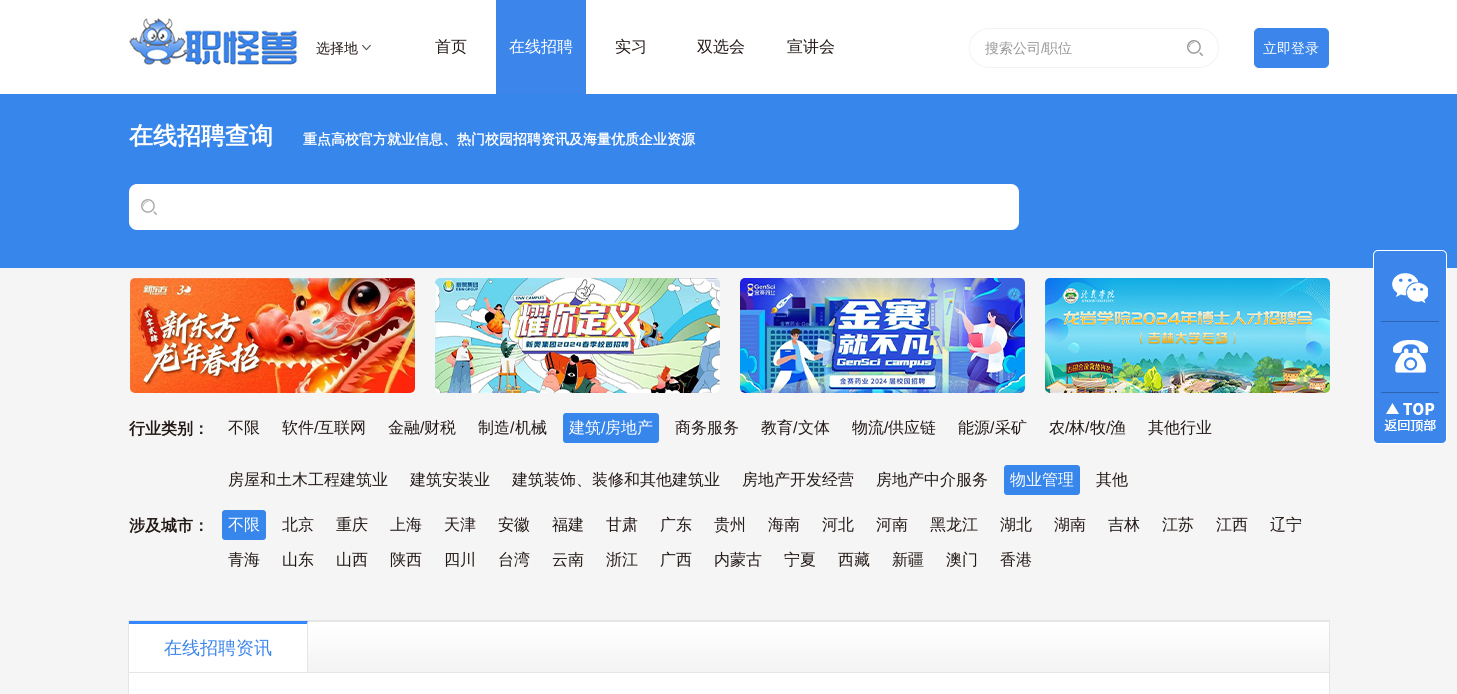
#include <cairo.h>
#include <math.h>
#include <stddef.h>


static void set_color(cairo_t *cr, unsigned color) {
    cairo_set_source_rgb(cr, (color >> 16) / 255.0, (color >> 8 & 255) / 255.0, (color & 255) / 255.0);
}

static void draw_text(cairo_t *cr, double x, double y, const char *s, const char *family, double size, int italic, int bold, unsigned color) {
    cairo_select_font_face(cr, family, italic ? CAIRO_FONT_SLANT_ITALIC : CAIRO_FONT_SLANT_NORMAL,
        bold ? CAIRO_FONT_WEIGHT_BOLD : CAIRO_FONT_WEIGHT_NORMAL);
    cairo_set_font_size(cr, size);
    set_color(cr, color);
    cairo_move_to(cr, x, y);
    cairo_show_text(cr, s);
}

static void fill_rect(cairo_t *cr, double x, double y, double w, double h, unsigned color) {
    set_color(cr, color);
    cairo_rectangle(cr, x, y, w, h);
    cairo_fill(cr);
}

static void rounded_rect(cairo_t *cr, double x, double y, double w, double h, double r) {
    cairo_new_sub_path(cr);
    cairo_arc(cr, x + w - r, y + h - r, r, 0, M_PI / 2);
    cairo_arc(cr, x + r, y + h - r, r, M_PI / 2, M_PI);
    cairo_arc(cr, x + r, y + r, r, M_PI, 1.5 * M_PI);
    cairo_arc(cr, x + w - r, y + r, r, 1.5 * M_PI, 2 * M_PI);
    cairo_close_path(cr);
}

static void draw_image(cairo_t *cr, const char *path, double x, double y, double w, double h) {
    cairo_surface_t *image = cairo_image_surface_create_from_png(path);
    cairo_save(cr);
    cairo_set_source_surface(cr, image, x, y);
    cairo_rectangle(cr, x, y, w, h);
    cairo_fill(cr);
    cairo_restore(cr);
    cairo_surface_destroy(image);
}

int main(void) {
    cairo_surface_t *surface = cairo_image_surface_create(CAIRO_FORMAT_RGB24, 1457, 694);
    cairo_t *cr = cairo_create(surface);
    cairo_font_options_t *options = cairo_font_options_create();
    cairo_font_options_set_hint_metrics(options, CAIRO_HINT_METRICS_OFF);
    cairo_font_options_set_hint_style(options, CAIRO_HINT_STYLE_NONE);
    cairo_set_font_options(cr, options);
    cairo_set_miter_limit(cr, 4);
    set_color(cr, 0xF5F5F5);
    cairo_paint(cr);
    fill_rect(cr, 0, 0, 1457, 94, 0xFFFFFF);
    draw_image(cr, "assets/img1.png", 129, 16, 170, 56);
    draw_image(cr, "assets/img2.png", 362, 44, 9, 7);
    draw_text(cr, 316, 53, "选择地", "WenQuanYi Zen Hei Medium", 14, 0, 0, 0x221815);
    draw_text(cr, 435, 52, "首页", "WenQuanYi Zen Hei Medium", 16, 0, 0, 0x221815);
    fill_rect(cr, 496, 0, 90, 94, 0x3B85EB);
    draw_text(cr, 509, 52, "在线招聘", "WenQuanYi Zen Hei Medium", 16, 0, 0, 0xFFFFFF);
    draw_text(cr, 615, 52, "实习", "WenQuanYi Zen Hei Medium", 16, 0, 0, 0x221815);
    draw_text(cr, 697, 52, "双选会", "WenQuanYi Zen Hei Medium", 16, 0, 0, 0x221815);
    draw_text(cr, 787, 52, "宣讲会", "WenQuanYi Zen Hei Medium", 16, 0, 0, 0x221815);
    rounded_rect(cr, 969.5, 28.5, 249, 39, 19.5);
    set_color(cr, 0xF3F3F3);
    cairo_set_line_width(cr, 1);
    cairo_stroke(cr);
    fill_rect(cr, 985, 29, 1, 38, 0xFFFFFF);
    draw_text(cr, 985, 53, "搜索公司", "WenQuanYi Zen Hei Medium", 14, 0, 0, 0x969697);
    draw_text(cr, 1041, 53, "/", "Liberation Sans", 14, 0, 0, 0x969697);
    draw_text(cr, 1044, 53, "职位", "WenQuanYi Zen Hei Medium", 14, 0, 0, 0x969697);
    draw_image(cr, "assets/img3.png", 1187, 40, 16, 16);
    set_color(cr, 0x3B85EB);
    rounded_rect(cr, 1254.5, 28.5, 74, 39, 4.5);
    cairo_fill_preserve(cr);
    cairo_stroke(cr);
    draw_text(cr, 1263, 53, "立即登录", "WenQuanYi Zen Hei Medium", 14, 0, 0, 0xFFFFFF);
    fill_rect(cr, 0, 94, 1457, 174, 0x3786EB);
    draw_text(cr, 129, 144, "在线招聘查询", "WenQuanYi Zen Hei", 24, 0, 1, 0xFFFFFF);
    draw_text(cr, 303, 144, "重点高校官方就业信息、热门校园招聘资讯及海量优质企业资源", "WenQuanYi Zen Hei", 14, 0, 1, 0xFFFFFF);
    rounded_rect(cr, 129, 184, 890, 46, 8);
    cairo_fill(cr);
    draw_image(cr, "assets/img4.png", 141, 199, 16, 16);
    draw_image(cr, "assets/img5.png", 130, 278, 285, 115);
    draw_image(cr, "assets/img6.png", 435, 278, 285, 115);
    draw_image(cr, "assets/img7.png", 740, 278, 285, 115);
    draw_image(cr, "assets/img8.png", 1045, 278, 285, 115);
    set_color(cr, 0x3B85EB);
    rounded_rect(cr, 1373.5, 250.5, 73, 193, 4.5);
    cairo_fill_preserve(cr);
    set_color(cr, 0xFFFFFF);
    cairo_stroke(cr);
    draw_image(cr, "assets/img9.png", 1392, 273, 36, 30);
    fill_rect(cr, 1381, 321, 58, 1, 0x2C64B2);
    draw_image(cr, "assets/img10.png", 1393, 340, 35, 33);
    fill_rect(cr, 1381, 392, 58, 1, 0x2C64B2);
    draw_image(cr, "assets/img11.png", 1384, 403, 52, 29);
    draw_text(cr, 129, 434, "行业类别：", "WenQuanYi Zen Hei", 16, 0, 1, 0x221815);
    draw_text(cr, 228, 433, "不限", "WenQuanYi Zen Hei Medium", 16, 0, 0, 0x221815);
    draw_text(cr, 282, 433, "软件", "WenQuanYi Zen Hei Medium", 16, 0, 0, 0x221815);
    draw_text(cr, 314, 433, "/", "Liberation Sans", 16, 0, 0, 0x221815);
    draw_text(cr, 318, 433, "互联网", "WenQuanYi Zen Hei Medium", 16, 0, 0, 0x221815);
    draw_text(cr, 388, 433, "金融", "WenQuanYi Zen Hei Medium", 16, 0, 0, 0x221815);
    draw_text(cr, 420, 433, "/", "Liberation Sans", 16, 0, 0, 0x221815);
    draw_text(cr, 424, 433, "财税", "WenQuanYi Zen Hei Medium", 16, 0, 0, 0x221815);
    draw_text(cr, 478, 433, "制造", "WenQuanYi Zen Hei Medium", 16, 0, 0, 0x221815);
    draw_text(cr, 510, 433, "/", "Liberation Sans", 16, 0, 0, 0x221815);
    draw_text(cr, 515, 433, "机械", "WenQuanYi Zen Hei Medium", 16, 0, 0, 0x221815);
    set_color(cr, 0x3786EB);
    rounded_rect(cr, 563, 413, 96, 30, 3);
    cairo_fill(cr);
    draw_text(cr, 569, 433, "建筑", "WenQuanYi Zen Hei Medium", 16, 0, 0, 0xFFFFFF);
    draw_text(cr, 601, 433, "/", "Liberation Sans", 16, 0, 0, 0xFFFFFF);
    draw_text(cr, 605, 433, "房地产", "WenQuanYi Zen Hei Medium", 16, 0, 0, 0xFFFFFF);
    draw_text(cr, 675, 433, "商务服务", "WenQuanYi Zen Hei Medium", 16, 0, 0, 0x221815);
    draw_text(cr, 761, 433, "教育", "WenQuanYi Zen Hei Medium", 16, 0, 0, 0x221815);
    draw_text(cr, 793, 433, "/", "Liberation Sans", 16, 0, 0, 0x221815);
    draw_text(cr, 798, 433, "文体", "WenQuanYi Zen Hei Medium", 16, 0, 0, 0x221815);
    draw_text(cr, 852, 433, "物流", "WenQuanYi Zen Hei Medium", 16, 0, 0, 0x221815);
    draw_text(cr, 884, 433, "/", "Liberation Sans", 16, 0, 0, 0x221815);
    draw_text(cr, 888, 433, "供应链", "WenQuanYi Zen Hei Medium", 16, 0, 0, 0x221815);
    draw_text(cr, 958, 433, "能源", "WenQuanYi Zen Hei Medium", 16, 0, 0, 0x221815);
    draw_text(cr, 990, 433, "/", "Liberation Sans", 16, 0, 0, 0x221815);
    draw_text(cr, 995, 433, "采矿", "WenQuanYi Zen Hei Medium", 16, 0, 0, 0x221815);
    draw_text(cr, 1049, 433, "农", "WenQuanYi Zen Hei Medium", 16, 0, 0, 0x221815);
    draw_text(cr, 1065, 433, "/", "Liberation Sans", 16, 0, 0, 0x221815);
    draw_text(cr, 1069, 433, "林", "WenQuanYi Zen Hei Medium", 16, 0, 0, 0x221815);
    draw_text(cr, 1085, 433, "/", "Liberation Sans", 16, 0, 0, 0x221815);
    draw_text(cr, 1090, 433, "牧", "WenQuanYi Zen Hei Medium", 16, 0, 0, 0x221815);
    draw_text(cr, 1106, 433, "/", "Liberation Sans", 16, 0, 0, 0x221815);
    draw_text(cr, 1110, 433, "渔", "WenQuanYi Zen Hei Medium", 16, 0, 0, 0x221815);
    draw_text(cr, 1148, 433, "其他行业", "WenQuanYi Zen Hei Medium", 16, 0, 0, 0x221815);
    draw_text(cr, 228, 485, "房屋和土木工程建筑业", "WenQuanYi Zen Hei Medium", 16, 0, 0, 0x221815);
    draw_text(cr, 410, 485, "建筑安装业", "WenQuanYi Zen Hei Medium", 16, 0, 0, 0x221815);
    draw_text(cr, 512, 485, "建筑装饰、装修和其他建筑业", "WenQuanYi Zen Hei Medium", 16, 0, 0, 0x221815);
    draw_text(cr, 742, 485, "房地产开发经营", "WenQuanYi Zen Hei Medium", 16, 0, 0, 0x221815);
    draw_text(cr, 876, 485, "房地产中介服务", "WenQuanYi Zen Hei Medium", 16, 0, 0, 0x221815);
    set_color(cr, 0x3786EB);
    rounded_rect(cr, 1004, 465, 76, 30, 3);
    cairo_fill(cr);
    draw_text(cr, 1010, 485, "物业管理", "WenQuanYi Zen Hei Medium", 16, 0, 0, 0xFFFFFF);
    draw_text(cr, 1096, 485, "其他", "WenQuanYi Zen Hei Medium", 16, 0, 0, 0x221815);
    draw_text(cr, 129, 531, "涉及城市：", "WenQuanYi Zen Hei", 16, 0, 1, 0x221815);
    set_color(cr, 0x3786EB);
    rounded_rect(cr, 222, 510, 44, 30, 3);
    cairo_fill(cr);
    draw_text(cr, 228, 530, "不限", "WenQuanYi Zen Hei Medium", 16, 0, 0, 0xFFFFFF);
    draw_text(cr, 282, 530, "北京", "WenQuanYi Zen Hei Medium", 16, 0, 0, 0x221815);
    draw_text(cr, 336, 530, "重庆", "WenQuanYi Zen Hei Medium", 16, 0, 0, 0x221815);
    draw_text(cr, 390, 530, "上海", "WenQuanYi Zen Hei Medium", 16, 0, 0, 0x221815);
    draw_text(cr, 444, 530, "天津", "WenQuanYi Zen Hei Medium", 16, 0, 0, 0x221815);
    draw_text(cr, 498, 530, "安徽", "WenQuanYi Zen Hei Medium", 16, 0, 0, 0x221815);
    draw_text(cr, 552, 530, "福建", "WenQuanYi Zen Hei Medium", 16, 0, 0, 0x221815);
    draw_text(cr, 606, 530, "甘肃", "WenQuanYi Zen Hei Medium", 16, 0, 0, 0x221815);
    draw_text(cr, 660, 530, "广东", "WenQuanYi Zen Hei Medium", 16, 0, 0, 0x221815);
    draw_text(cr, 714, 530, "贵州", "WenQuanYi Zen Hei Medium", 16, 0, 0, 0x221815);
    draw_text(cr, 768, 530, "海南", "WenQuanYi Zen Hei Medium", 16, 0, 0, 0x221815);
    draw_text(cr, 822, 530, "河北", "WenQuanYi Zen Hei Medium", 16, 0, 0, 0x221815);
    draw_text(cr, 876, 530, "河南", "WenQuanYi Zen Hei Medium", 16, 0, 0, 0x221815);
    draw_text(cr, 930, 530, "黑龙江", "WenQuanYi Zen Hei Medium", 16, 0, 0, 0x221815);
    draw_text(cr, 1000, 530, "湖北", "WenQuanYi Zen Hei Medium", 16, 0, 0, 0x221815);
    draw_text(cr, 1054, 530, "湖南", "WenQuanYi Zen Hei Medium", 16, 0, 0, 0x221815);
    draw_text(cr, 1108, 530, "吉林", "WenQuanYi Zen Hei Medium", 16, 0, 0, 0x221815);
    draw_text(cr, 1162, 530, "江苏", "WenQuanYi Zen Hei Medium", 16, 0, 0, 0x221815);
    draw_text(cr, 1216, 530, "江西", "WenQuanYi Zen Hei Medium", 16, 0, 0, 0x221815);
    draw_text(cr, 1270, 530, "辽宁", "WenQuanYi Zen Hei Medium", 16, 0, 0, 0x221815);
    draw_text(cr, 228, 565, "青海", "WenQuanYi Zen Hei Medium", 16, 0, 0, 0x221815);
    draw_text(cr, 282, 565, "山东", "WenQuanYi Zen Hei Medium", 16, 0, 0, 0x221815);
    draw_text(cr, 336, 565, "山西", "WenQuanYi Zen Hei Medium", 16, 0, 0, 0x221815);
    draw_text(cr, 390, 565, "陕西", "WenQuanYi Zen Hei Medium", 16, 0, 0, 0x221815);
    draw_text(cr, 444, 565, "四川", "WenQuanYi Zen Hei Medium", 16, 0, 0, 0x221815);
    draw_text(cr, 498, 565, "台湾", "WenQuanYi Zen Hei Medium", 16, 0, 0, 0x221815);
    draw_text(cr, 552, 565, "云南", "WenQuanYi Zen Hei Medium", 16, 0, 0, 0x221815);
    draw_text(cr, 606, 565, "浙江", "WenQuanYi Zen Hei Medium", 16, 0, 0, 0x221815);
    draw_text(cr, 660, 565, "广西", "WenQuanYi Zen Hei Medium", 16, 0, 0, 0x221815);
    draw_text(cr, 714, 565, "内蒙古", "WenQuanYi Zen Hei Medium", 16, 0, 0, 0x221815);
    draw_text(cr, 784, 565, "宁夏", "WenQuanYi Zen Hei Medium", 16, 0, 0, 0x221815);
    draw_text(cr, 838, 565, "西藏", "WenQuanYi Zen Hei Medium", 16, 0, 0, 0x221815);
    draw_text(cr, 892, 565, "新疆", "WenQuanYi Zen Hei Medium", 16, 0, 0, 0x221815);
    draw_text(cr, 946, 565, "澳门", "WenQuanYi Zen Hei Medium", 16, 0, 0, 0x221815);
    draw_text(cr, 1000, 565, "香港", "WenQuanYi Zen Hei Medium", 16, 0, 0, 0x221815);
    fill_rect(cr, 129, 673, 1200, 21, 0xFFFFFF);
    cairo_rectangle(cr, 128.5, 620.5, 1201, 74);
    set_color(cr, 0xE5E5E5);
    cairo_stroke(cr);
    draw_image(cr, "assets/img12.png", 308, 621, 1021, 51);
    fill_rect(cr, 129, 672, 1200, 1, 0xE5E5E5);
    fill_rect(cr, 129, 621, 179, 51, 0xFFFFFF);
    set_color(cr, 0x3388FF);
    cairo_new_path(cr);
    cairo_move_to(cr, 129, 621);
    cairo_line_to(cr, 308, 621);
    cairo_line_to(cr, 307, 624);
    cairo_line_to(cr, 129, 624);
    cairo_close_path(cr);
    cairo_fill(cr);
    set_color(cr, 0xE5E5E5);
    cairo_new_path(cr);
    cairo_move_to(cr, 308, 621);
    cairo_line_to(cr, 308, 672);
    cairo_line_to(cr, 307, 672);
    cairo_line_to(cr, 307, 624);
    cairo_close_path(cr);
    cairo_fill(cr);
    draw_text(cr, 164, 654, "在线招聘资讯", "WenQuanYi Zen Hei Medium", 18, 0, 0, 0x3B85EB);
    cairo_surface_write_to_png(surface, "output.png");
    cairo_font_options_destroy(options);
    cairo_destroy(cr);
    cairo_surface_destroy(surface);
    return 0;
}
